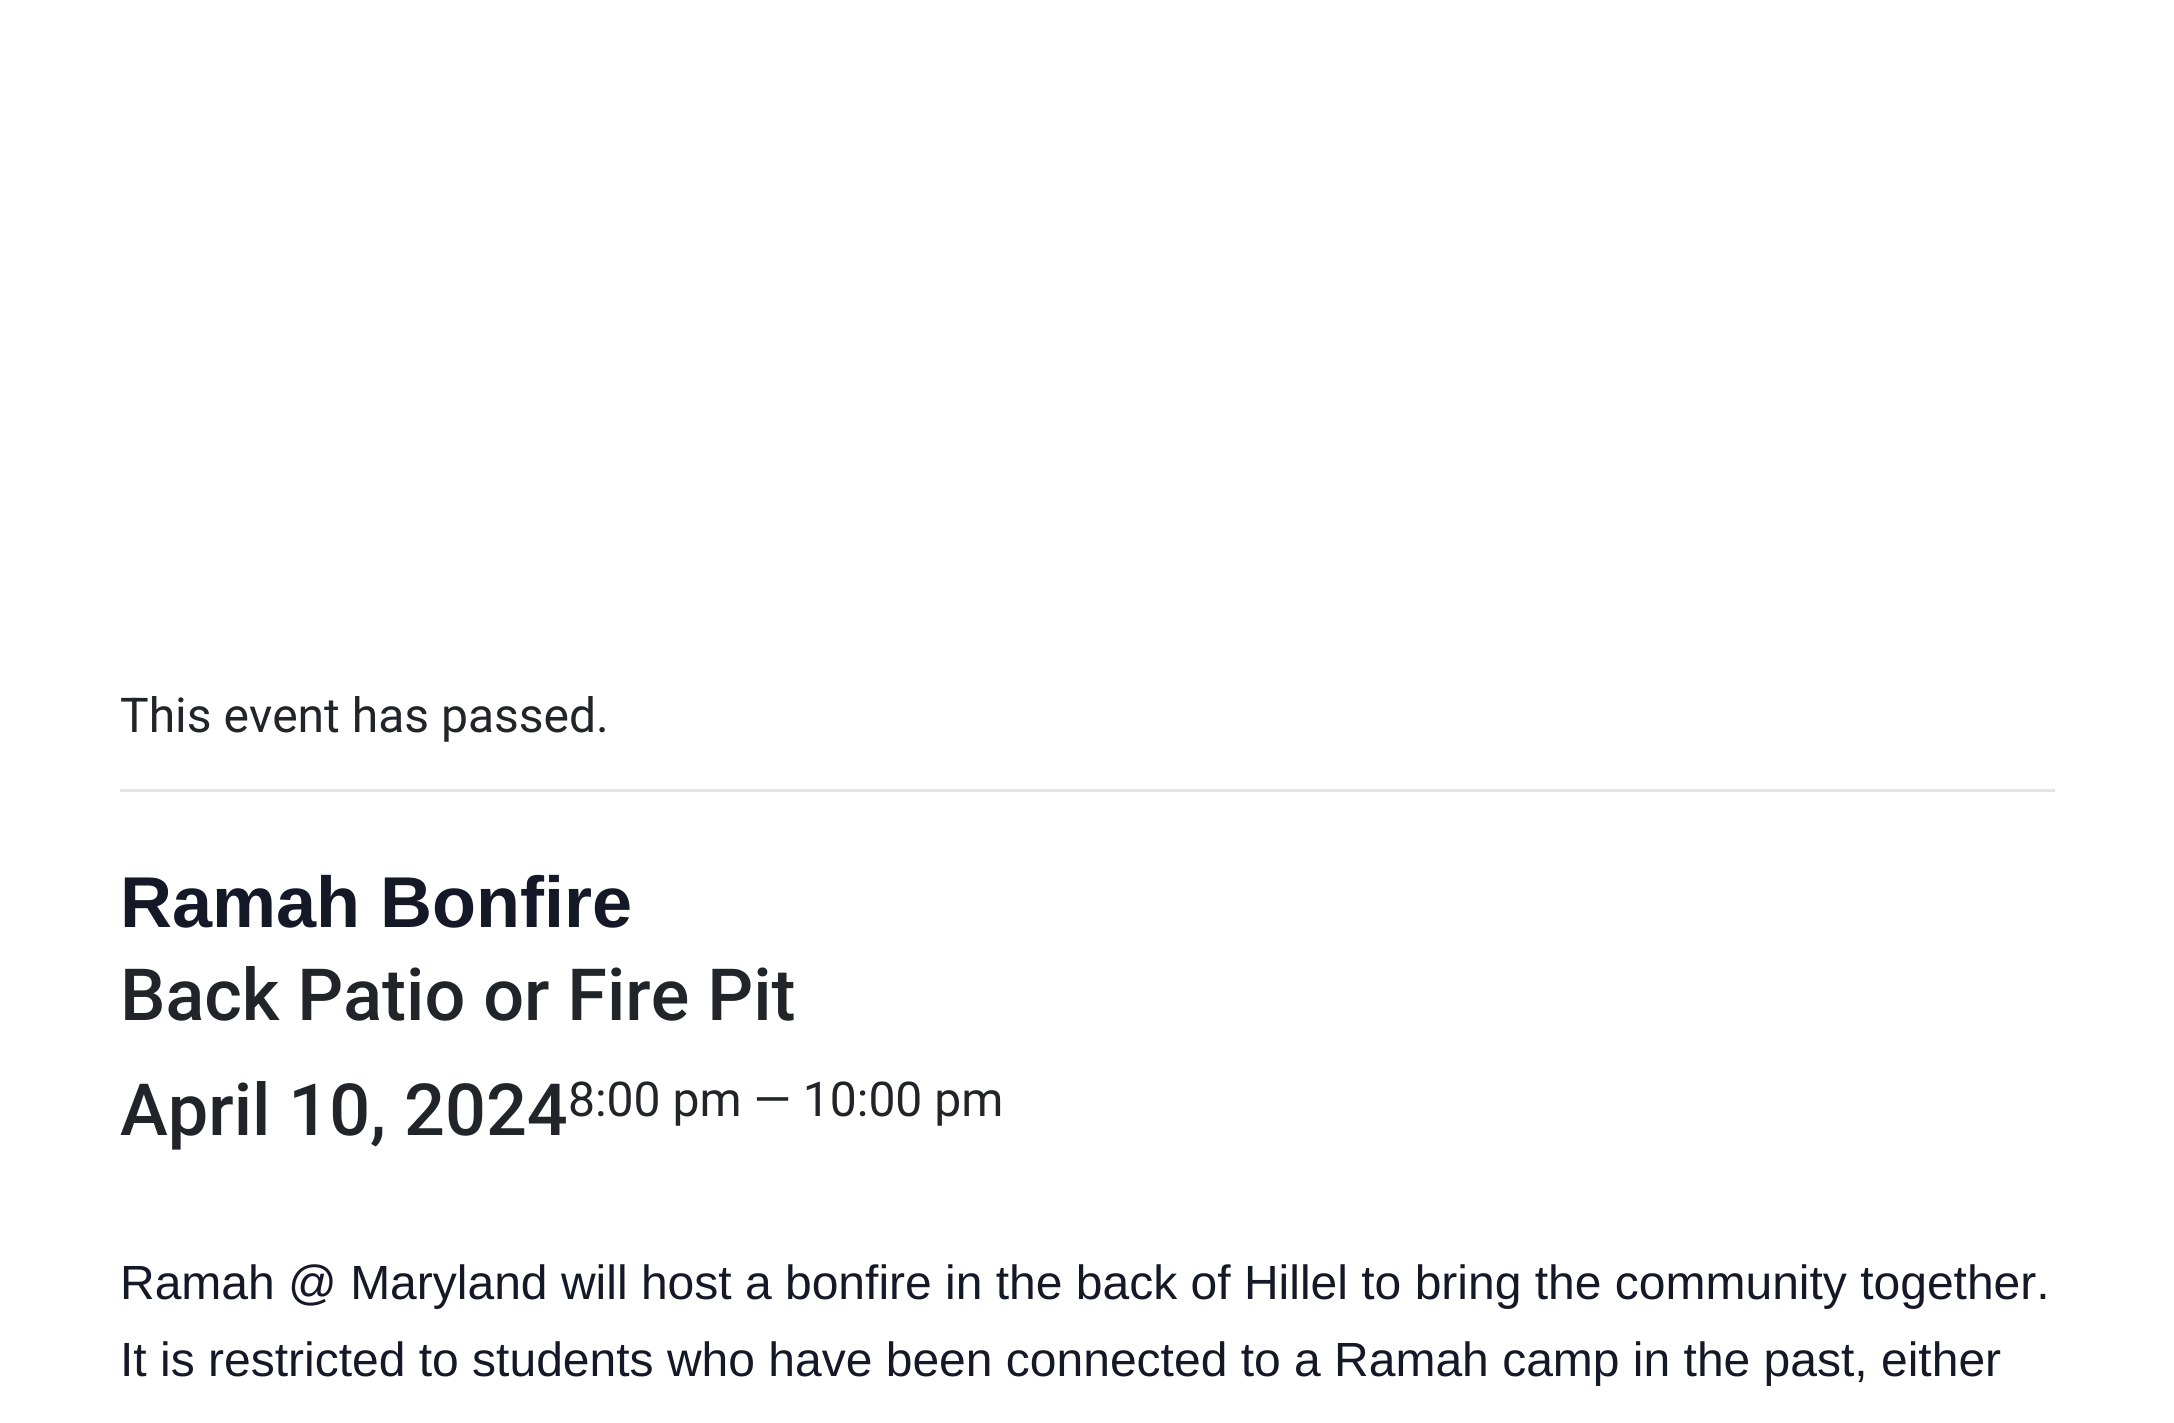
#include <cairo.h>
#include <math.h>
#include <stddef.h>


static void set_color(cairo_t *cr, unsigned color) {
    cairo_set_source_rgb(cr, (color >> 16) / 255.0, (color >> 8 & 255) / 255.0, (color & 255) / 255.0);
}

static void draw_text(cairo_t *cr, double x, double y, const char *s, const char *family, double size, int italic, int bold, unsigned color) {
    cairo_select_font_face(cr, family, italic ? CAIRO_FONT_SLANT_ITALIC : CAIRO_FONT_SLANT_NORMAL,
        bold ? CAIRO_FONT_WEIGHT_BOLD : CAIRO_FONT_WEIGHT_NORMAL);
    cairo_set_font_size(cr, size);
    set_color(cr, color);
    cairo_move_to(cr, x, y);
    cairo_show_text(cr, s);
}

static void fill_rect(cairo_t *cr, double x, double y, double w, double h, unsigned color) {
    set_color(cr, color);
    cairo_rectangle(cr, x, y, w, h);
    cairo_fill(cr);
}

int main(void) {
    cairo_surface_t *surface = cairo_image_surface_create(CAIRO_FORMAT_RGB24, 2174, 1423);
    cairo_t *cr = cairo_create(surface);
    cairo_font_options_t *options = cairo_font_options_create();
    cairo_font_options_set_hint_metrics(options, CAIRO_HINT_METRICS_OFF);
    cairo_font_options_set_hint_style(options, CAIRO_HINT_STYLE_NONE);
    cairo_set_font_options(cr, options);
    cairo_set_miter_limit(cr, 4);
    set_color(cr, 0xFFFFFF);
    cairo_paint(cr);
    fill_rect(cr, 120, 789, 1935, 3, 0xE4E4E4);
    draw_text(cr, 120, 732, "This event has passed.", "Roboto", 48, 0, 0, 0x212529);
    draw_text(cr, 120, 927, "Ramah Bonfire", "Liberation Sans", 72, 0, 1, 0x141827);
    draw_text(cr, 120, 1020, "Back Patio or Fire Pit", "Roboto Medium", 72, 0, 0, 0x212529);
    draw_text(cr, 120, 1135, "April 10, 2024", "Roboto Medium", 72, 0, 0, 0x212529);
    draw_text(cr, 568, 1116, "8:00 pm — 10:00 pm", "Roboto", 48, 0, 0, 0x212529);
    draw_text(cr, 120, 1299, "Ramah @ Maryland will host a bonfire in the back of Hillel to bring the community together.", "Liberation Sans", 48, 0, 0, 0x141827);
    draw_text(cr, 120, 1376, "It is restricted to students who have been connected to a Ramah camp in the past, either", "Liberation Sans", 48, 0, 0, 0x141827);
    cairo_surface_write_to_png(surface, "output.png");
    cairo_font_options_destroy(options);
    cairo_destroy(cr);
    cairo_surface_destroy(surface);
    return 0;
}
